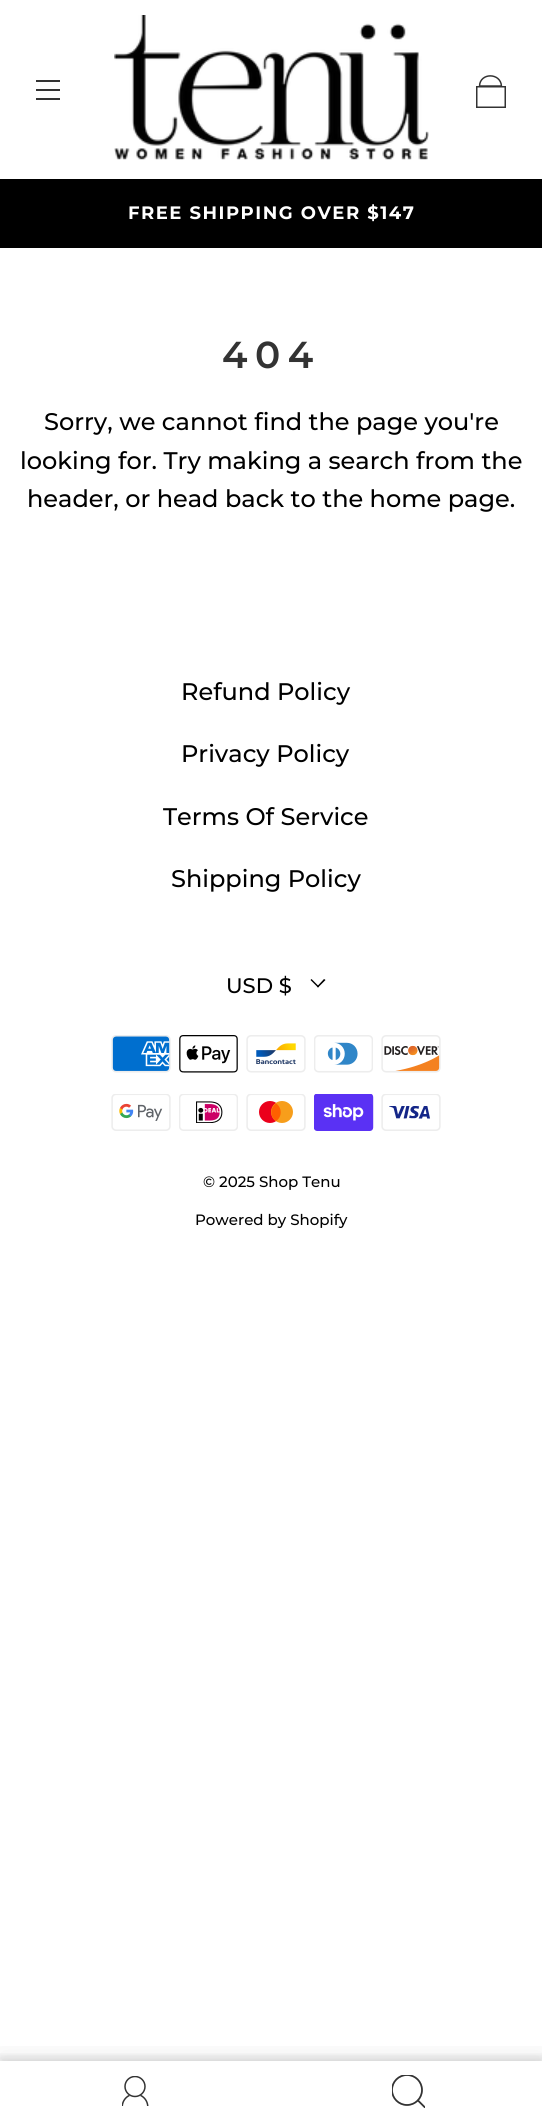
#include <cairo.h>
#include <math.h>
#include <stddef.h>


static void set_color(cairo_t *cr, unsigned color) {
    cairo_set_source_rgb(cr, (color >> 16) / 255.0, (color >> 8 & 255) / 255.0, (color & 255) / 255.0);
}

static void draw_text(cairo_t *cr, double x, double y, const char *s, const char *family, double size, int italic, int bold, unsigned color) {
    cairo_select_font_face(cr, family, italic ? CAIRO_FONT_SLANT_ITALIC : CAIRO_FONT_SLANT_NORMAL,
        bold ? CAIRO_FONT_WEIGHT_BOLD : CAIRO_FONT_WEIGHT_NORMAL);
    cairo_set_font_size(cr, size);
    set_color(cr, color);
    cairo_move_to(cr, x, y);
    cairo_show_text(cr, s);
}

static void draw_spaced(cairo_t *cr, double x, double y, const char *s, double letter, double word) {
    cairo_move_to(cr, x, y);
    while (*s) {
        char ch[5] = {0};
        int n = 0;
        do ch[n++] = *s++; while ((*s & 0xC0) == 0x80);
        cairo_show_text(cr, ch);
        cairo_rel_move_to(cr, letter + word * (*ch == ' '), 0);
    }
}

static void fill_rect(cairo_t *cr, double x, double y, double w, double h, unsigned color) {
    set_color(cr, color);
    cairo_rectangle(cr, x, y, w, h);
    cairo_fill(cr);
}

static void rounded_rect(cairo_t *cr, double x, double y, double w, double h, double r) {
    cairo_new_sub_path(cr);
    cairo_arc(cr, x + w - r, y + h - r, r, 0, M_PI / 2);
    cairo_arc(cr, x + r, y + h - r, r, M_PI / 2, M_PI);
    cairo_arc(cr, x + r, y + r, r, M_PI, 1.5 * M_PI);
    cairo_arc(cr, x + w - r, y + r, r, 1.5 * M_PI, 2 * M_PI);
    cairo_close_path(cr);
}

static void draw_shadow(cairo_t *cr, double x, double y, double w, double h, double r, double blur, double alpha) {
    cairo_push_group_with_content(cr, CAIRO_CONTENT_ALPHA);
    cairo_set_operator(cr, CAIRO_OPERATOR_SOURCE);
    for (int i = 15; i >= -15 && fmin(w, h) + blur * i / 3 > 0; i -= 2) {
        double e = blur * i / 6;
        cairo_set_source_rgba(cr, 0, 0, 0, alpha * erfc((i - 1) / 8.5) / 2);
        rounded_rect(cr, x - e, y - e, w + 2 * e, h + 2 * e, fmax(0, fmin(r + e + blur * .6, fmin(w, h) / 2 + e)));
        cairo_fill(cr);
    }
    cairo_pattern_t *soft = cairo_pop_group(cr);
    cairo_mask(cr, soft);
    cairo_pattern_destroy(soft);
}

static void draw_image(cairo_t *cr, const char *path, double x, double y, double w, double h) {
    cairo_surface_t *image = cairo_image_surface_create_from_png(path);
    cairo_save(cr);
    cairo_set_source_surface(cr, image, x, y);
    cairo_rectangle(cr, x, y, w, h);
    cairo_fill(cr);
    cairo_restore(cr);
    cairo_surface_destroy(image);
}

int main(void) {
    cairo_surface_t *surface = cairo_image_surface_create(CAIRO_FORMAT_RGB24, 542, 2120);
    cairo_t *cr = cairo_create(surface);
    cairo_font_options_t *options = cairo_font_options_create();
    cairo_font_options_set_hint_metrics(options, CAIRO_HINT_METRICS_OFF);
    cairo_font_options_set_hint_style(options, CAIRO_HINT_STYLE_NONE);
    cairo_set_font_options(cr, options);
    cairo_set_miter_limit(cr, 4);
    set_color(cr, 0xFFFFFF);
    cairo_paint(cr);
    fill_rect(cr, 0, 179, 542, 69, 0x000000);
    set_color(cr, 0x000000);
    draw_shadow(cr, 0, 9, 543, 179, 0, 15, 0.06);
    draw_shadow(cr, 0, 5, 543, 178, 0, 4, 0.12);
    fill_rect(cr, 0, 0, 542, 179, 0xFFFFFF);
    fill_rect(cr, 36, 80, 24, 2, 0x333333);
    fill_rect(cr, 36, 89, 24, 2, 0x333333);
    fill_rect(cr, 36, 98, 24, 2, 0x333333);
    draw_image(cr, "assets/img1.png", 114, 15, 315, 145);
    cairo_new_path(cr);
    cairo_move_to(cr, 479.5, 86);
    cairo_curve_to(cr, 480, 72.5, 500.5, 72.5, 501.5, 86);
    cairo_close_path(cr);
    cairo_set_line_width(cr, 1.5);
    cairo_stroke(cr);
    cairo_rectangle(cr, 476.75, 86.75, 28.5, 20.5);
    cairo_stroke(cr);
    cairo_select_font_face(cr, "Montserrat", CAIRO_FONT_SLANT_NORMAL, CAIRO_FONT_WEIGHT_BOLD);
    cairo_set_font_size(cr, 18);
    set_color(cr, 0xFFFFFF);
    draw_spaced(cr, 128, 219, "FREE SHIPPING OVER $147", 1.5, 0);
    cairo_select_font_face(cr, "Montserrat SemiBold", CAIRO_FONT_SLANT_NORMAL, CAIRO_FONT_WEIGHT_NORMAL);
    cairo_set_font_size(cr, 37.5);
    set_color(cr, 0x333333);
    draw_spaced(cr, 222, 368, "404", 7.5, 0);
    draw_text(cr, 44, 430, "Sorry, we cannot find the page you're", "Montserrat Medium", 24, 0, 0, 0x000000);
    draw_text(cr, 20, 469, "looking for. Try making a search from the", "Montserrat Medium", 24, 0, 0, 0x000000);
    draw_text(cr, 27, 507, "header, or head back to the home page.", "Montserrat Medium", 24, 0, 0, 0x000000);
    draw_text(cr, 181, 700, "Refund Policy", "Montserrat Medium", 24, 0, 0, 0x000000);
    draw_text(cr, 181, 762, "Privacy Policy", "Montserrat Medium", 24, 0, 0, 0x000000);
    draw_text(cr, 163, 825, "Terms Of Service", "Montserrat Medium", 24, 0, 0, 0x000000);
    draw_text(cr, 171, 887, "Shipping Policy", "Montserrat Medium", 24, 0, 0, 0x000000);
    draw_text(cr, 226, 993, "USD $", "Montserrat Medium", 21, 0, 0, 0x000000);
    cairo_new_path(cr);
    cairo_move_to(cr, 324, 979);
    cairo_line_to(cr, 325.5, 980);
    cairo_line_to(cr, 318, 987.5);
    cairo_line_to(cr, 317, 986.5);
    cairo_close_path(cr);
    cairo_fill(cr);
    cairo_new_path(cr);
    cairo_move_to(cr, 311.5, 979);
    cairo_line_to(cr, 319, 986.5);
    cairo_line_to(cr, 318, 987.5);
    cairo_line_to(cr, 310.5, 980);
    cairo_close_path(cr);
    cairo_fill(cr);
    draw_image(cr, "assets/img2.png", 111, 1035, 60, 38);
    draw_image(cr, "assets/img3.png", 179, 1035, 59, 38);
    draw_image(cr, "assets/img4.png", 246, 1035, 60, 38);
    draw_image(cr, "assets/img5.png", 314, 1035, 59, 38);
    draw_image(cr, "assets/img6.png", 381, 1035, 60, 38);
    draw_image(cr, "assets/img7.png", 111, 1094, 60, 37);
    draw_image(cr, "assets/img8.png", 179, 1094, 59, 37);
    draw_image(cr, "assets/img9.png", 246, 1094, 60, 37);
    draw_image(cr, "assets/img10.png", 314, 1094, 60, 37);
    draw_image(cr, "assets/img11.png", 381, 1094, 60, 37);
    draw_text(cr, 203, 1187, "© 2025 Shop Tenu", "Montserrat Medium", 15, 0, 0, 0x000000);
    draw_text(cr, 195, 1225, "Powered by Shopify", "Montserrat Medium", 15, 0, 0, 0x000000);
    cairo_save(cr);
    cairo_rectangle(cr, 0, 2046, 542, 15);
    cairo_clip(cr);
    set_color(cr, 0x000000);
    draw_shadow(cr, 0, 2052, 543, 60, 0, 15, 0.06);
    cairo_restore(cr);
    cairo_save(cr);
    cairo_rectangle(cr, 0, 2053, 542, 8);
    cairo_clip(cr);
    set_color(cr, 0x000000);
    draw_shadow(cr, 0, 2057, 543, 60, 0, 4, 0.12);
    cairo_restore(cr);
    draw_image(cr, "assets/img12.png", 122, 2076, 27, 30);
    cairo_save(cr);
    cairo_rectangle(cr, 392, 2075, 33, 33);
    cairo_clip(cr);
    cairo_arc(cr, 407, 2090, 15, 0, 2 * M_PI);
    set_color(cr, 0x333333);
    cairo_set_line_width(cr, 1.8);
    cairo_stroke(cr);
    cairo_new_path(cr);
    cairo_move_to(cr, 417.5, 2100);
    cairo_line_to(cr, 428, 2110.5);
    cairo_stroke(cr);
    cairo_restore(cr);
    cairo_surface_write_to_png(surface, "output.png");
    cairo_font_options_destroy(options);
    cairo_destroy(cr);
    cairo_surface_destroy(surface);
    return 0;
}
